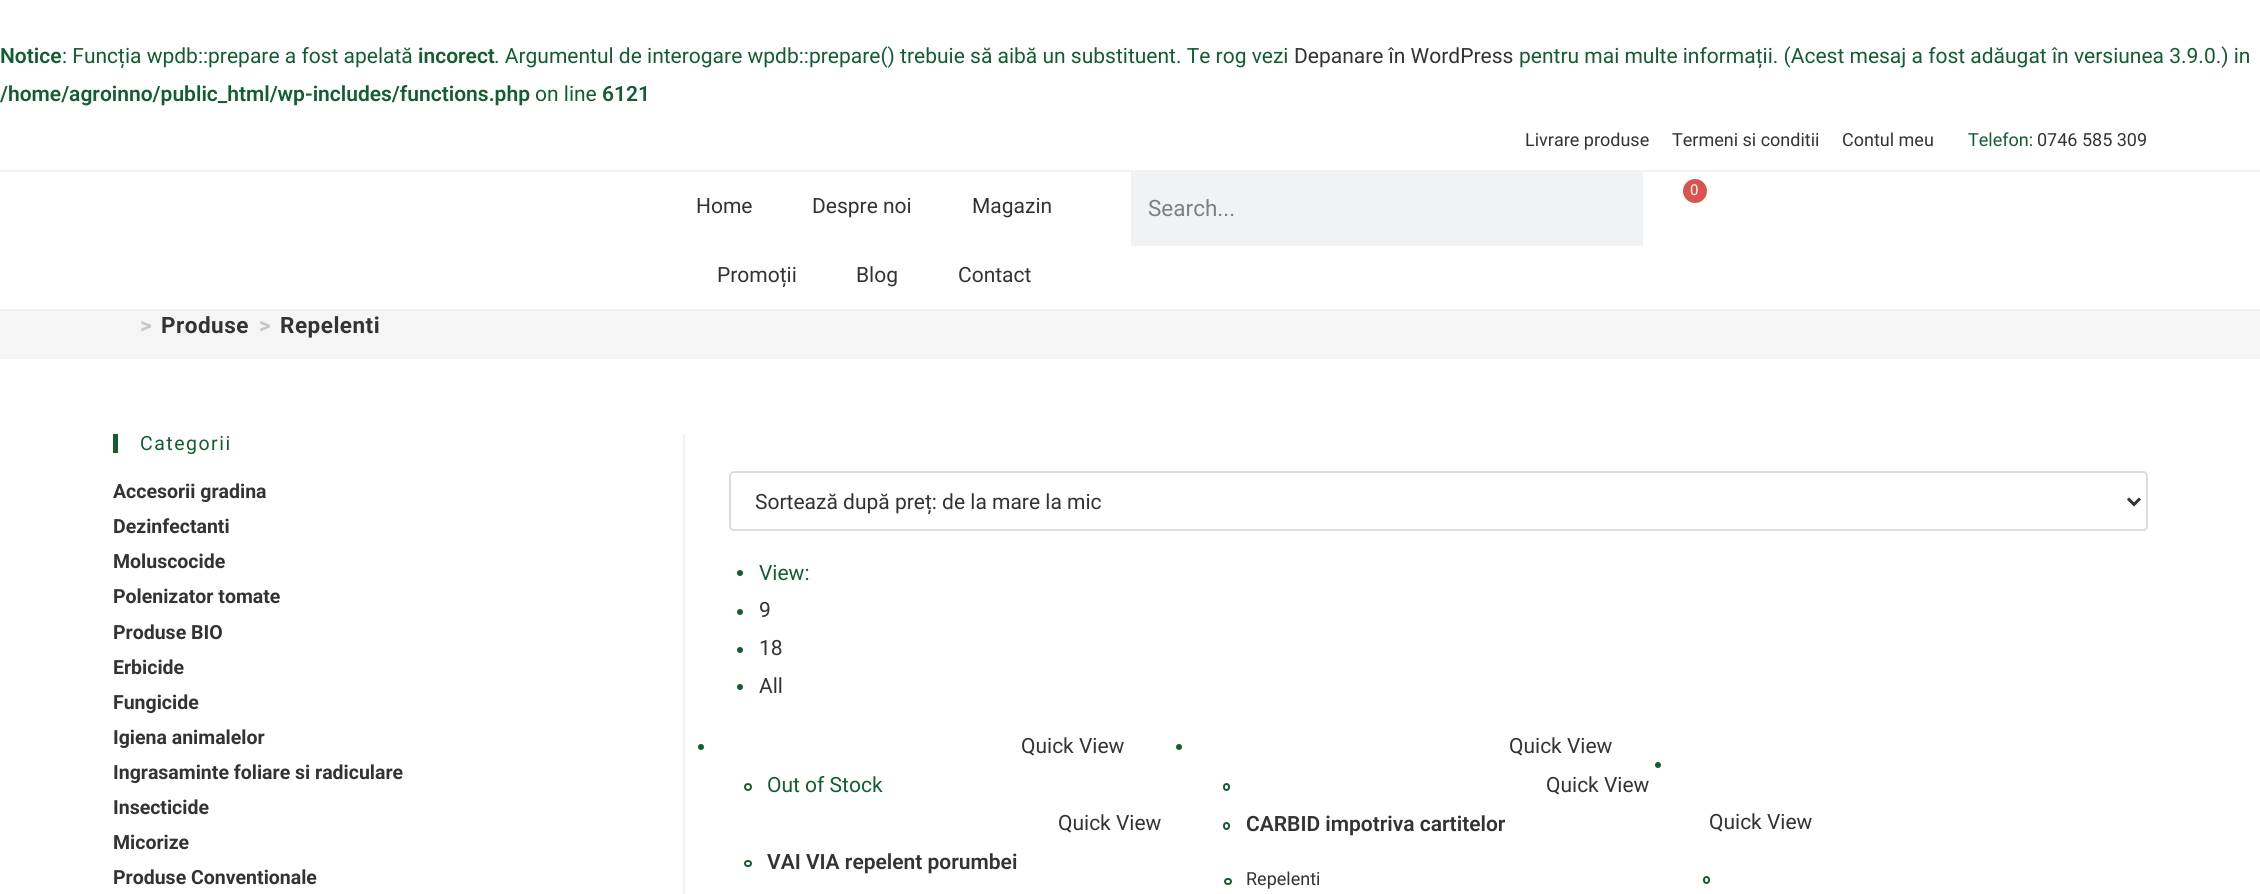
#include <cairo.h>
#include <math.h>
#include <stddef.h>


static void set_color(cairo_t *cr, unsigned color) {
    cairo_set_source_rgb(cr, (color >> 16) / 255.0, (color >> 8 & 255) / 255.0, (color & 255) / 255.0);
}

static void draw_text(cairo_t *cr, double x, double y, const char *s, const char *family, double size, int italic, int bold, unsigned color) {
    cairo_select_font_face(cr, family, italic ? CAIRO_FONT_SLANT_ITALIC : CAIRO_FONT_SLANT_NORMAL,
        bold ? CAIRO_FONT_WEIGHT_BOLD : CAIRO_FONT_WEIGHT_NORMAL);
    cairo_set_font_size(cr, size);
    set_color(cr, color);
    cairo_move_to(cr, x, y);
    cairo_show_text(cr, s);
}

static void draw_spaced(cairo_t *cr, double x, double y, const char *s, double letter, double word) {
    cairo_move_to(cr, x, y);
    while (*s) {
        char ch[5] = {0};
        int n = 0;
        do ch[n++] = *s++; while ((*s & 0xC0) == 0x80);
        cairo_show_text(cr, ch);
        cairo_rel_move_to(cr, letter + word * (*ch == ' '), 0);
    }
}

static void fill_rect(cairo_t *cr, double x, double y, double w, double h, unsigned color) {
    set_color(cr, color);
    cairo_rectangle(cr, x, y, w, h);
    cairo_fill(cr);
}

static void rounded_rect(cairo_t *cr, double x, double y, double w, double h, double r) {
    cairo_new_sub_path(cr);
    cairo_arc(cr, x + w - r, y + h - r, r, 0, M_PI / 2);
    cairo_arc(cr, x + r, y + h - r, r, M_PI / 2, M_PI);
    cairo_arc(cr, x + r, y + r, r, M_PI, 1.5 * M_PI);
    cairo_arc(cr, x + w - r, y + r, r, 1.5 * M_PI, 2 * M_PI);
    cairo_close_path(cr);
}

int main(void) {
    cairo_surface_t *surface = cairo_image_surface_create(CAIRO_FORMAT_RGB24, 2260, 894);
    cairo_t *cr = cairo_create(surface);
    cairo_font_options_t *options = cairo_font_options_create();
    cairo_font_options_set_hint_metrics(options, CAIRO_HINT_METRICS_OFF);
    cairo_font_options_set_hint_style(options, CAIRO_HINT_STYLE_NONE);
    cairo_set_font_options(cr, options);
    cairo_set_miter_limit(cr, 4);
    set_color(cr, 0xFFFFFF);
    cairo_paint(cr);
    draw_text(cr, 0, 63, "Notice", "Roboto SemiBold", 21, 0, 0, 0x145D31);
    draw_text(cr, 62, 63, ": Funcția wpdb::prepare a fost apelată", "Roboto", 21, 0, 0, 0x145D31);
    draw_text(cr, 418, 63, "incorect", "Roboto SemiBold", 21, 0, 0, 0x145D31);
    draw_text(cr, 494, 63, ". Argumentul de interogare wpdb::prepare() trebuie să aibă un substituent. Te rog vezi", "Roboto", 21, 0, 0, 0x145D31);
    draw_text(cr, 1294, 63, "Depanare în WordPress", "Roboto", 21, 0, 0, 0x333333);
    draw_text(cr, 1519, 63, "pentru mai multe informații. (Acest mesaj a fost adăugat în versiunea 3.9.0.) in", "Roboto", 21, 0, 0, 0x145D31);
    draw_text(cr, 0, 101, "/home/agroinno/public_html/wp-includes/functions.php", "Roboto SemiBold", 21, 0, 0, 0x145D31);
    draw_text(cr, 535, 101, "on line", "Roboto", 21, 0, 0, 0x145D31);
    draw_text(cr, 602, 101, "6121", "Roboto SemiBold", 21, 0, 0, 0x145D31);
    fill_rect(cr, 0, 170, 2260, 2, 0xF1F1F1);
    draw_text(cr, 1525, 146, "Livrare produse", "Roboto", 18, 0, 0, 0x333333);
    draw_text(cr, 1672, 146, "Termeni si conditii", "Roboto", 18, 0, 0, 0x333333);
    draw_text(cr, 1842, 146, "Contul meu", "Roboto", 18, 0, 0, 0x333333);
    draw_text(cr, 1968, 146, "Telefon:", "Roboto", 18, 0, 0, 0x145D31);
    draw_text(cr, 2037, 146, "0746 585 309", "Roboto", 18, 0, 0, 0x333333);
    fill_rect(cr, 0, 309, 2260, 2, 0xF1F1F1);
    set_color(cr, 0xD9534F);
    cairo_new_path(cr);
    cairo_arc(cr, 1695, 191, 12, 0, 2 * M_PI);
    cairo_fill(cr);
    draw_text(cr, 1690, 195, "0", "Roboto", 15, 0, 0, 0xFFFFFF);
    draw_text(cr, 696, 213, "Home", "Roboto", 21, 0, 0, 0x333333);
    draw_text(cr, 812, 213, "Despre noi", "Roboto", 21, 0, 0, 0x333333);
    draw_text(cr, 972, 213, "Magazin", "Roboto", 21, 0, 0, 0x333333);
    draw_text(cr, 717, 282, "Promoții", "Roboto", 21, 0, 0, 0x333333);
    draw_text(cr, 856, 282, "Blog", "Roboto", 21, 0, 0, 0x333333);
    draw_text(cr, 958, 282, "Contact", "Roboto", 21, 0, 0, 0x333333);
    fill_rect(cr, 1131, 172, 512, 74, 0xF1F2F3);
    draw_text(cr, 1148, 216, "Search...", "Roboto", 22.5, 0, 0, 0x7F7F80);
    fill_rect(cr, 0, 311, 2260, 48, 0xF5F5F5);
    cairo_select_font_face(cr, "Roboto", CAIRO_FONT_SLANT_NORMAL, CAIRO_FONT_WEIGHT_BOLD);
    set_color(cr, 0xC6C6C6);
    draw_spaced(cr, 140, 333, ">", 0.5, 0);
    set_color(cr, 0x333333);
    draw_spaced(cr, 161, 333, "Produse", 0.5, 0);
    set_color(cr, 0xC6C6C6);
    draw_spaced(cr, 259, 333, ">", 0.5, 0);
    set_color(cr, 0x333333);
    draw_spaced(cr, 280, 333, "Repelenti", 0.5, 0);
    fill_rect(cr, 113, 434, 5, 19, 0x145D31);
    cairo_select_font_face(cr, "Roboto", CAIRO_FONT_SLANT_NORMAL, CAIRO_FONT_WEIGHT_NORMAL);
    cairo_set_font_size(cr, 19.5);
    draw_spaced(cr, 140, 450, "Categorii", 1.5, 0);
    draw_text(cr, 113, 498, "Accesorii gradina", "Roboto", 19.5, 0, 1, 0x333333);
    draw_text(cr, 113, 533, "Dezinfectanti", "Roboto", 19.5, 0, 1, 0x333333);
    draw_text(cr, 113, 568, "Moluscocide", "Roboto", 19.5, 0, 1, 0x333333);
    draw_text(cr, 113, 603, "Polenizator tomate", "Roboto", 19.5, 0, 1, 0x333333);
    draw_text(cr, 113, 639, "Produse BIO", "Roboto", 19.5, 0, 1, 0x333333);
    draw_text(cr, 113, 674, "Erbicide", "Roboto", 19.5, 0, 1, 0x333333);
    draw_text(cr, 113, 709, "Fungicide", "Roboto", 19.5, 0, 1, 0x333333);
    draw_text(cr, 113, 744, "Igiena animalelor", "Roboto", 19.5, 0, 1, 0x333333);
    draw_text(cr, 113, 779, "Ingrasaminte foliare si radiculare", "Roboto", 19.5, 0, 1, 0x333333);
    draw_text(cr, 113, 814, "Insecticide", "Roboto", 19.5, 0, 1, 0x333333);
    draw_text(cr, 113, 849, "Micorize", "Roboto", 19.5, 0, 1, 0x333333);
    draw_text(cr, 113, 884, "Produse Conventionale", "Roboto", 19.5, 0, 1, 0x333333);
    fill_rect(cr, 683, 434, 2, 460, 0xF1F1F1);
    rounded_rect(cr, 730, 472, 1417, 58, 4);
    set_color(cr, 0xDDDDDD);
    cairo_stroke(cr);
    cairo_new_path(cr);
    cairo_move_to(cr, 2128, 498.5);
    cairo_line_to(cr, 2134, 504.5);
    cairo_line_to(cr, 2140, 498.5);
    set_color(cr, 0x333333);
    cairo_set_line_width(cr, 3);
    cairo_stroke(cr);
    draw_text(cr, 755, 509, "Sortează după preț: de la mare la mic", "Roboto", 21, 0, 0, 0x333333);
    set_color(cr, 0x145D31);
    cairo_new_path(cr);
    cairo_arc(cr, 740, 573, 3, 0, 2 * M_PI);
    cairo_fill(cr);
    draw_text(cr, 759, 580, "View:", "Roboto", 21, 0, 0, 0x145D31);
    cairo_new_path(cr);
    cairo_arc(cr, 740, 612, 3, 0, 2 * M_PI);
    cairo_fill(cr);
    draw_text(cr, 759, 617, "9", "Roboto", 21, 0, 0, 0x333333);
    set_color(cr, 0x145D31);
    cairo_new_path(cr);
    cairo_arc(cr, 740, 650, 3, 0, 2 * M_PI);
    cairo_fill(cr);
    draw_text(cr, 759, 655, "18", "Roboto", 21, 0, 0, 0x333333);
    set_color(cr, 0x145D31);
    cairo_new_path(cr);
    cairo_arc(cr, 740, 687, 3, 0, 2 * M_PI);
    cairo_fill(cr);
    draw_text(cr, 759, 693, "All", "Roboto", 21, 0, 0, 0x333333);
    set_color(cr, 0x145D31);
    cairo_new_path(cr);
    cairo_arc(cr, 701, 747, 3, 0, 2 * M_PI);
    cairo_fill(cr);
    draw_text(cr, 1021, 753, "Quick View", "Roboto", 21, 0, 0, 0x333333);
    cairo_new_path(cr);
    cairo_arc(cr, 748, 787, 3, 0, 2 * M_PI);
    set_color(cr, 0x145D31);
    cairo_set_line_width(cr, 2);
    cairo_stroke(cr);
    draw_text(cr, 767, 792, "Out of Stock", "Roboto", 21, 0, 0, 0x145D31);
    draw_text(cr, 1058, 830, "Quick View", "Roboto", 21, 0, 0, 0x333333);
    rounded_rect(cr, 745, 861, 6, 5, 2.5);
    set_color(cr, 0x145D31);
    cairo_stroke(cr);
    draw_text(cr, 767, 869, "VAI VIA repelent porumbei", "Roboto SemiBold", 21, 0, 0, 0x333333);
    set_color(cr, 0x145D31);
    cairo_new_path(cr);
    cairo_arc(cr, 1179, 747, 3, 0, 2 * M_PI);
    cairo_fill(cr);
    draw_text(cr, 1509, 753, "Quick View", "Roboto", 21, 0, 0, 0x333333);
    rounded_rect(cr, 1224, 784, 5, 6, 2.5);
    set_color(cr, 0x145D31);
    cairo_stroke(cr);
    draw_text(cr, 1546, 792, "Quick View", "Roboto", 21, 0, 0, 0x333333);
    rounded_rect(cr, 1224, 823, 5, 6, 2.5);
    set_color(cr, 0x145D31);
    cairo_stroke(cr);
    draw_text(cr, 1246, 831, "CARBID impotriva cartitelor", "Roboto SemiBold", 21, 0, 0, 0x333333);
    rounded_rect(cr, 1225, 879, 6, 5, 2.5);
    set_color(cr, 0x145D31);
    cairo_stroke(cr);
    draw_text(cr, 1246, 885, "Repelenti", "Roboto", 18, 0, 0, 0x333333);
    set_color(cr, 0x145D31);
    cairo_new_path(cr);
    cairo_arc(cr, 1658, 765, 3, 0, 2 * M_PI);
    cairo_fill(cr);
    draw_text(cr, 1709, 829, "Quick View", "Roboto", 21, 0, 0, 0x333333);
    rounded_rect(cr, 1704, 877, 5, 6, 2.5);
    set_color(cr, 0x145D31);
    cairo_stroke(cr);
    cairo_surface_write_to_png(surface, "output.png");
    cairo_font_options_destroy(options);
    cairo_destroy(cr);
    cairo_surface_destroy(surface);
    return 0;
}
